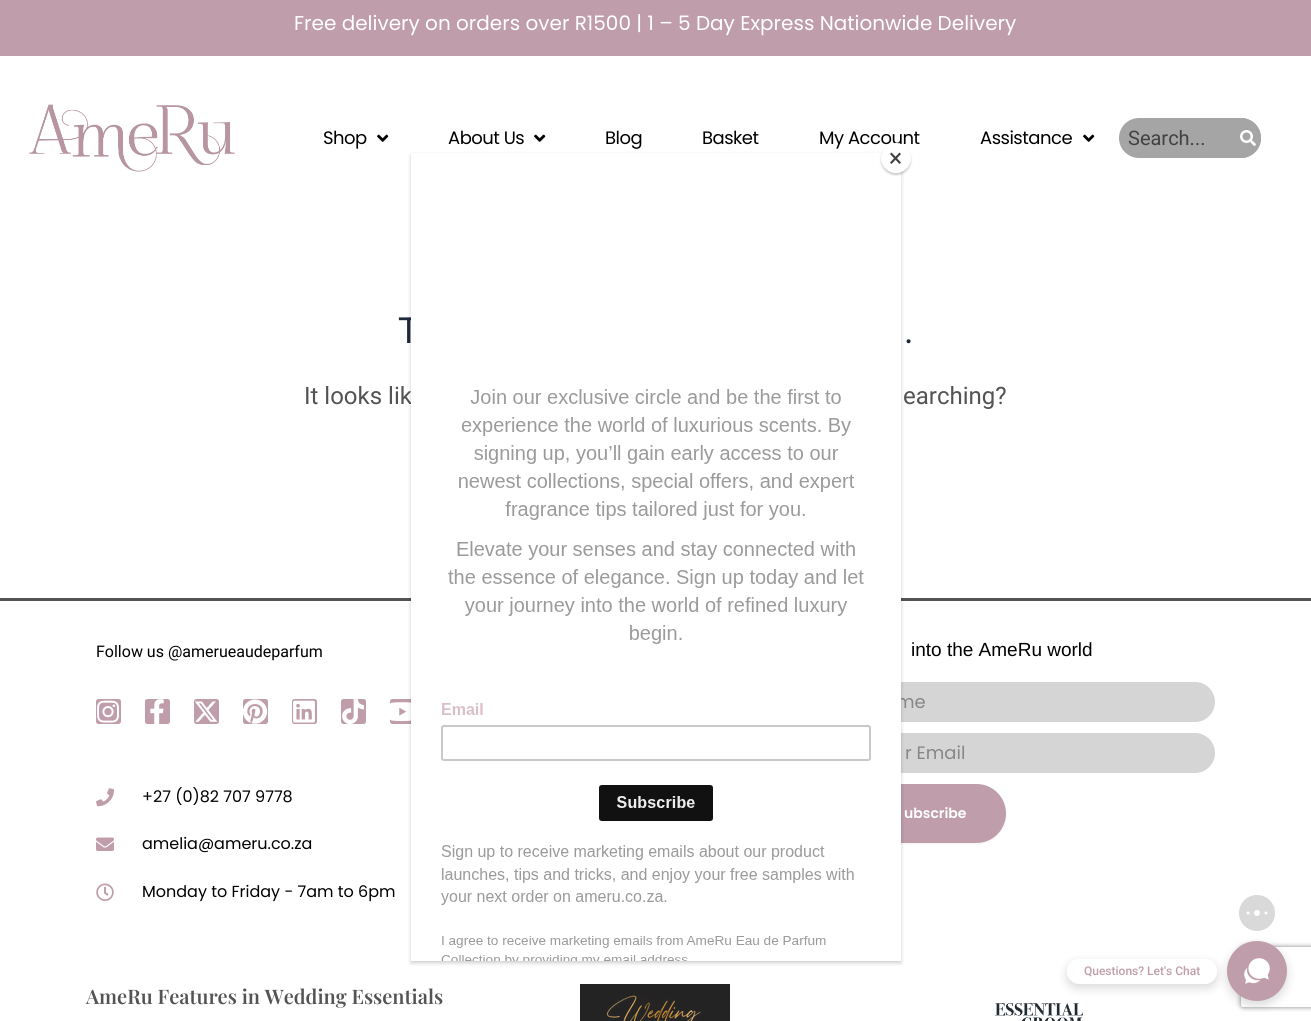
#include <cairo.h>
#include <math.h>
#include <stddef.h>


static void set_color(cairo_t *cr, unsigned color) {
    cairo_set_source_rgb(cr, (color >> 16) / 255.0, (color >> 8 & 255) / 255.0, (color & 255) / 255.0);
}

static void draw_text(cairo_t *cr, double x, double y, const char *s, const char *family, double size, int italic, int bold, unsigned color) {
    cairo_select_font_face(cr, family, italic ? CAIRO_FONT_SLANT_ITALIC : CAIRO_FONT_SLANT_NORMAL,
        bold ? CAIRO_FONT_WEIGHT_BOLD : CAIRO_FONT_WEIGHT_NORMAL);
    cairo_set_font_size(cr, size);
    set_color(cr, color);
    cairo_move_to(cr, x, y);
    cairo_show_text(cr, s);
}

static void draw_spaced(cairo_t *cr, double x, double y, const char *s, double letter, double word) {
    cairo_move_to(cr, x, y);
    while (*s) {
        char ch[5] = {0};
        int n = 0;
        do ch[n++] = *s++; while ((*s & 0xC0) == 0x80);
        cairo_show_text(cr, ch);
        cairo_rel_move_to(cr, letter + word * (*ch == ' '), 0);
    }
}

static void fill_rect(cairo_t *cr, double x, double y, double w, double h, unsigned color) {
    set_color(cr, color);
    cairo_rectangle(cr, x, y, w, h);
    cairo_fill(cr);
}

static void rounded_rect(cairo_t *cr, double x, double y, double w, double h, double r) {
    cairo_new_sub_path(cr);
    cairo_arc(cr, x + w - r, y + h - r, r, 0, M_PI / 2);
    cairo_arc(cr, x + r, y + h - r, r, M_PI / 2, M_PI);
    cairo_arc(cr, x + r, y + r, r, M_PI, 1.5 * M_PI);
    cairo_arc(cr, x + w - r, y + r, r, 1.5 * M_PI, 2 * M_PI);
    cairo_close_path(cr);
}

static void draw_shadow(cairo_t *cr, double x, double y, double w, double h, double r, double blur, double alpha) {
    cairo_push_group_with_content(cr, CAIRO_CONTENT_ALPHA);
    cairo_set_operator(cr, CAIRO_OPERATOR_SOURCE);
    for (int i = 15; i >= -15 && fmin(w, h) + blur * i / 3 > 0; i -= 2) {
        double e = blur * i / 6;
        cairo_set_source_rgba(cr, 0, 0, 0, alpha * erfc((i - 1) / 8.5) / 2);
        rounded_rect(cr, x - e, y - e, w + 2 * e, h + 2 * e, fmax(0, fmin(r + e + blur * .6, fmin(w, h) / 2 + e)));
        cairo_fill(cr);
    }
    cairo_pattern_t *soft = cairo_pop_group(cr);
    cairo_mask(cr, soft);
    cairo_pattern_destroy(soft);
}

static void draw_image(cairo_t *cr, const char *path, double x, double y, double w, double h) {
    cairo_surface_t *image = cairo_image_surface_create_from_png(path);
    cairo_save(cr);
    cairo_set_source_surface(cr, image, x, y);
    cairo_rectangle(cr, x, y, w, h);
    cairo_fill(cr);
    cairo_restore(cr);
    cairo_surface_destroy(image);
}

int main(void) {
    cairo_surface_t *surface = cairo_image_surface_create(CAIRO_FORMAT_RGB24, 1311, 1021);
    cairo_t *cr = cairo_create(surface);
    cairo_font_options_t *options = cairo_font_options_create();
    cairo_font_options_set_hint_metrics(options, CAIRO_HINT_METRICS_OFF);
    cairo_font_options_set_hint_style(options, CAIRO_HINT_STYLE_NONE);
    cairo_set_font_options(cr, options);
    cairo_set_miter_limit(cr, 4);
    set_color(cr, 0xFFFFFF);
    cairo_paint(cr);
    fill_rect(cr, 0, 0, 1311, 56, 0xBF9DAA);
    draw_text(cr, 294, 30, "Free delivery on orders over R1500 | 1 – 5 Day Express Nationwide Delivery", "Poppins", 20, 0, 0, 0xFFFFFF);
    draw_image(cr, "assets/img1.png", 29, 104, 206, 68);
    cairo_set_font_size(cr, 18);
    set_color(cr, 0x000000);
    draw_spaced(cr, 323, 144, "Shop", -0.5, 0);
    draw_image(cr, "assets/img2.png", 377, 134, 12, 8);
    draw_spaced(cr, 448, 144, "About Us", -0.5, 0);
    draw_image(cr, "assets/img2.png", 534, 134, 12, 8);
    draw_spaced(cr, 605, 144, "Blog", -0.5, 0);
    draw_spaced(cr, 702, 144, "Basket", -0.5, 0);
    draw_spaced(cr, 819, 144, "My Account", -0.5, 0);
    draw_spaced(cr, 980, 144, "Assistance", -0.5, 0);
    draw_image(cr, "assets/img2.png", 1083, 134, 12, 8);
    set_color(cr, 0xA6A5A5);
    rounded_rect(cr, 1119, 118, 142, 40, 20);
    cairo_fill(cr);
    draw_text(cr, 1128, 145, "Search...", "Roboto", 20, 0, 0, 0x424242);
    set_color(cr, 0xA6A5A5);
    cairo_new_path(cr);
    cairo_move_to(cr, 1236, 118);
    cairo_line_to(cr, 1241, 118);
    cairo_curve_to(cr, 1252, 118, 1261, 127, 1261, 138);
    cairo_curve_to(cr, 1261, 149, 1252, 158, 1241, 158);
    cairo_line_to(cr, 1236, 158);
    cairo_close_path(cr);
    cairo_fill(cr);
    draw_image(cr, "assets/img3.png", 1240, 130, 16, 16);
    draw_text(cr, 398, 343, "T", "Roboto", 36, 0, 0, 0x1E293B);
    draw_text(cr, 904, 343, ".", "Roboto", 36, 0, 0, 0x1E293B);
    draw_text(cr, 304, 404, "It looks lik", "Roboto", 24, 0, 0, 0x535353);
    draw_text(cr, 903, 404, "earching?", "Roboto", 24, 0, 0, 0x535353);
    fill_rect(cr, 0, 598, 1311, 3, 0x535353);
    draw_text(cr, 96, 657, "Follow us @amerueaudeparfum", "Roboto", 16, 0, 0, 0x000000);
    set_color(cr, 0xBF9DAA);
    rounded_rect(cr, 96, 699, 25, 25, 2.5);
    cairo_fill(cr);
    draw_image(cr, "assets/img4.png", 97, 700, 22, 23);
    rounded_rect(cr, 145, 699, 25, 25, 2.5);
    cairo_fill(cr);
    draw_image(cr, "assets/img5.png", 150, 699, 14, 25);
    rounded_rect(cr, 194, 699, 25, 25, 2.5);
    cairo_fill(cr);
    draw_image(cr, "assets/img6.png", 195, 701, 23, 21);
    rounded_rect(cr, 243, 699, 25, 25, 2.5);
    cairo_fill(cr);
    draw_image(cr, "assets/img7.png", 243, 699, 25, 25);
    rounded_rect(cr, 292, 699, 25, 25, 2.5);
    cairo_fill(cr);
    draw_image(cr, "assets/img8.png", 293, 700, 22, 23);
    rounded_rect(cr, 341, 699, 25, 25, 2.5);
    cairo_fill(cr);
    draw_image(cr, "assets/img9.png", 342, 699, 22, 25);
    rounded_rect(cr, 390, 699, 25, 25, 2.5);
    cairo_fill(cr);
    draw_image(cr, "assets/img10.png", 390, 702, 21, 19);
    draw_image(cr, "assets/img11.png", 96, 788, 18, 19);
    draw_text(cr, 142, 802, "+27 (0)82 707 9778", "Poppins", 16, 0, 0, 0x000000);
    draw_image(cr, "assets/img12.png", 96, 837, 18, 14);
    draw_text(cr, 142, 849, "amelia@ameru.co.za", "Poppins", 16, 0, 0, 0x000000);
    draw_image(cr, "assets/img13.png", 96, 883, 18, 18);
    draw_text(cr, 142, 897, "Monday to Friday - 7am to 6pm", "Poppins", 16, 0, 0, 0x000000);
    draw_text(cr, 911, 656, "into the AmeRu world", "Liberation Sans", 19, 0, 0, 0x000000);
    set_color(cr, 0xD5D5D5);
    rounded_rect(cr, 855, 682, 360, 40, 20);
    cairo_fill(cr);
    draw_text(cr, 896, 708, "me", "Poppins", 18, 0, 0, 0x878787);
    set_color(cr, 0xD5D5D5);
    rounded_rect(cr, 855, 733, 360, 40, 20);
    cairo_fill(cr);
    draw_text(cr, 905, 759, "r Email", "Poppins", 18, 0, 0, 0x878787);
    set_color(cr, 0x000000);
    draw_shadow(cr, 855, 785, 151, 59, 29.5, 1, 0.05);
    set_color(cr, 0xBF9DAA);
    rounded_rect(cr, 855, 784, 151, 59, 29.5);
    cairo_fill(cr);
    draw_text(cr, 904, 818, "ubscribe", "Poppins SemiBold", 14, 0, 0, 0xFFFFFF);
    draw_text(cr, 86, 1004, "AmeRu Features in Wedding Essentials", "Playfair Display SemiBold", 20, 0, 0, 0x535353);
    draw_image(cr, "assets/img14.png", 580, 984, 150, 37);
    draw_image(cr, "assets/img15.png", 995, 1003, 88, 18);
    set_color(cr, 0x000000);
    draw_shadow(cr, 881, 145, 30, 30, 15, 1, 0.2);
    cairo_save(cr);
    cairo_set_fill_rule(cr, CAIRO_FILL_RULE_EVEN_ODD);
    cairo_new_path(cr);
    cairo_move_to(cr, 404, 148);
    cairo_line_to(cr, 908, 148);
    cairo_line_to(cr, 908, 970);
    cairo_line_to(cr, 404, 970);
    cairo_close_path(cr);
    cairo_move_to(cr, 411, 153);
    cairo_line_to(cr, 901, 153);
    cairo_line_to(cr, 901, 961);
    cairo_line_to(cr, 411, 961);
    cairo_close_path(cr);
    cairo_clip(cr);
    draw_shadow(cr, 411, 155, 490, 808, 0, 2, 0.2);
    cairo_restore(cr);
    set_color(cr, 0xFFFFFF);
    cairo_arc(cr, 896, 158, 15, 0, 2 * M_PI);
    cairo_fill(cr);
    set_color(cr, 0x414141);
    cairo_new_path(cr);
    cairo_move_to(cr, 899.5, 152.5);
    cairo_line_to(cr, 901, 154);
    cairo_line_to(cr, 891.5, 164);
    cairo_line_to(cr, 890, 162.5);
    cairo_close_path(cr);
    cairo_fill(cr);
    cairo_new_path(cr);
    cairo_move_to(cr, 890, 154);
    cairo_line_to(cr, 891.5, 152.5);
    cairo_line_to(cr, 901, 162.5);
    cairo_line_to(cr, 899.5, 164);
    cairo_close_path(cr);
    cairo_fill(cr);
    draw_image(cr, "assets/img16.png", 411, 316, 490, 645);
    set_color(cr, 0x000000);
    draw_shadow(cr, 1227, 945, 60, 60, 30, 5, 0.15);
    cairo_set_source_rgba(cr, 0, 0, 0, 0.15);
    cairo_arc(cr, 1257, 913, 18, 0, 2 * M_PI);
    cairo_fill(cr);
    draw_image(cr, "assets/img17.png", 1246, 910, 22, 6);
    cairo_save(cr);
    cairo_set_fill_rule(cr, CAIRO_FILL_RULE_EVEN_ODD);
    cairo_new_path(cr);
    cairo_move_to(cr, 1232, 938);
    cairo_line_to(cr, 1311, 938);
    cairo_line_to(cr, 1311, 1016);
    cairo_line_to(cr, 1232, 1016);
    cairo_close_path(cr);
    cairo_move_to(cr, 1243, 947);
    cairo_line_to(cr, 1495, 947);
    cairo_curve_to(cr, 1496, 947, 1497, 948, 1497, 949);
    cairo_line_to(cr, 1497, 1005);
    cairo_curve_to(cr, 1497, 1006, 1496, 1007, 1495, 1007);
    cairo_line_to(cr, 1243, 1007);
    cairo_curve_to(cr, 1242, 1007, 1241, 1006, 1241, 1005);
    cairo_line_to(cr, 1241, 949);
    cairo_curve_to(cr, 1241, 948, 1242, 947, 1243, 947);
    cairo_close_path(cr);
    cairo_clip(cr);
    set_color(cr, 0x808080);
    draw_shadow(cr, 1241, 947, 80, 60, 2, 2.5, 1);
    cairo_restore(cr);
    set_color(cr, 0xBF9DAA);
    cairo_arc(cr, 1257, 971, 30, 0, 2 * M_PI);
    cairo_fill(cr);
    cairo_save(cr);
    cairo_set_fill_rule(cr, CAIRO_FILL_RULE_EVEN_ODD);
    cairo_new_path(cr);
    cairo_move_to(cr, 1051, 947);
    cairo_line_to(cr, 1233, 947);
    cairo_line_to(cr, 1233, 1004);
    cairo_line_to(cr, 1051, 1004);
    cairo_close_path(cr);
    cairo_move_to(cr, 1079.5, 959);
    cairo_line_to(cr, 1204.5, 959);
    cairo_curve_to(cr, 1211.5, 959, 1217, 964.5, 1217, 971.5);
    cairo_curve_to(cr, 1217, 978.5, 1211.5, 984, 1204.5, 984);
    cairo_line_to(cr, 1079.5, 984);
    cairo_curve_to(cr, 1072.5, 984, 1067, 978.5, 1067, 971.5);
    cairo_curve_to(cr, 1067, 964.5, 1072.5, 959, 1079.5, 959);
    cairo_close_path(cr);
    cairo_clip(cr);
    set_color(cr, 0x000000);
    draw_shadow(cr, 1067, 963, 150, 25, 12.5, 5, 0.15);
    cairo_restore(cr);
    cairo_set_source_rgba(cr, 1, 1, 1, 0.3);
    rounded_rect(cr, 1067, 959, 150, 25, 12.5);
    cairo_fill(cr);
    draw_text(cr, 1084, 975, "Questions? Let's Chat", "Roboto Medium", 12, 0, 0, 0xBF9DAA);
    draw_image(cr, "assets/img18.png", 1244, 958, 26, 26);
    cairo_surface_write_to_png(surface, "output.png");
    cairo_font_options_destroy(options);
    cairo_destroy(cr);
    cairo_surface_destroy(surface);
    return 0;
}
